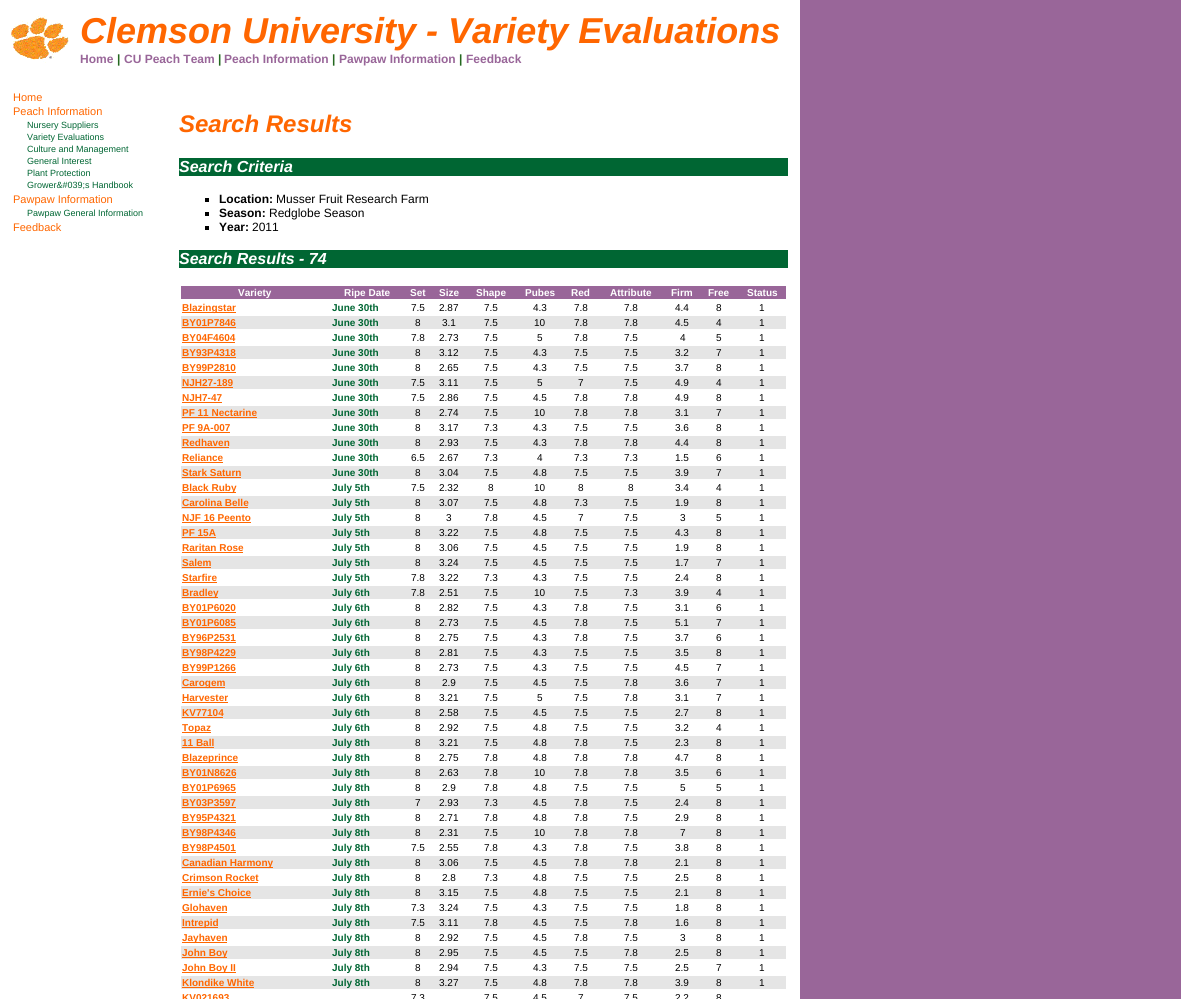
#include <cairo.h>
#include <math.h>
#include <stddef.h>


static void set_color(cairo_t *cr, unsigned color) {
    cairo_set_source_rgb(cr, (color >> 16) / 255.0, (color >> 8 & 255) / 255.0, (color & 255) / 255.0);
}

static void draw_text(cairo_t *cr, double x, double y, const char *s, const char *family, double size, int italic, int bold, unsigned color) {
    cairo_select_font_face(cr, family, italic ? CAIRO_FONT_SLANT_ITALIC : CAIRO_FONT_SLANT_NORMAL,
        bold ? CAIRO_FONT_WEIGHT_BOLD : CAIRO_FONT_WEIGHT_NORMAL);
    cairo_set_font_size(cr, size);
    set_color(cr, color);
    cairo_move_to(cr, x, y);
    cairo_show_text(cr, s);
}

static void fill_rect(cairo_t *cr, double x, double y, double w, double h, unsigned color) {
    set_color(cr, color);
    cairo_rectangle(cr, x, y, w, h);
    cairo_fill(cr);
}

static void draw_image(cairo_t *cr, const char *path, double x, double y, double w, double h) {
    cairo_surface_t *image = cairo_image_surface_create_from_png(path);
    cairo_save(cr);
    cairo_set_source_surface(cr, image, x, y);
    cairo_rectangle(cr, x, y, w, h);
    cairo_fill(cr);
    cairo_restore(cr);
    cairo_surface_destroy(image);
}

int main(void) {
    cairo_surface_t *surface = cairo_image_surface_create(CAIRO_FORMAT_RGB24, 1181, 999);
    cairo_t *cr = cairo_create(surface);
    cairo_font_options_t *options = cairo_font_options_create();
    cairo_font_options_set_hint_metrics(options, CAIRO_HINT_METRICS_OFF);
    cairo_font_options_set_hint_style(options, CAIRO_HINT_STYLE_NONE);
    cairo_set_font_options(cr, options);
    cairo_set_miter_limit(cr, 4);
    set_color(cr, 0xFFFFFF);
    cairo_paint(cr);
    draw_image(cr, "assets/img1.png", 11, 16, 58, 47);
    draw_text(cr, 80, 43, "Clemson University - Variety Evaluations", "Liberation Sans", 36, 1, 1, 0xFF6600);
    draw_text(cr, 80, 63, "Home", "Liberation Sans", 12, 0, 1, 0x996699);
    draw_text(cr, 117, 63, "|", "Liberation Sans", 12, 0, 1, 0x24681F);
    draw_text(cr, 124, 63, "CU Peach Team", "Liberation Sans", 12, 0, 1, 0x996699);
    draw_text(cr, 218, 63, "|", "Liberation Sans", 12, 0, 1, 0x24681F);
    draw_text(cr, 224, 63, "Peach Information", "Liberation Sans", 12, 0, 1, 0x996699);
    draw_text(cr, 332, 63, "|", "Liberation Sans", 12, 0, 1, 0x24681F);
    draw_text(cr, 339, 63, "Pawpaw Information", "Liberation Sans", 12, 0, 1, 0x996699);
    draw_text(cr, 459, 63, "|", "Liberation Sans", 12, 0, 1, 0x24681F);
    draw_text(cr, 466, 63, "Feedback", "Liberation Sans", 12, 0, 1, 0x996699);
    draw_text(cr, 13, 101, "Home", "Liberation Sans", 11, 0, 0, 0xFF6600);
    draw_text(cr, 13, 115, "Peach Information", "Liberation Sans", 11, 0, 0, 0xFF6600);
    draw_text(cr, 27, 128, "Nursery Suppliers", "Liberation Sans", 9, 0, 0, 0x006633);
    draw_text(cr, 27, 140, "Variety Evaluations", "Liberation Sans", 9, 0, 0, 0x006633);
    draw_text(cr, 27, 152, "Culture and Management", "Liberation Sans", 9, 0, 0, 0x006633);
    draw_text(cr, 27, 164, "General Interest", "Liberation Sans", 9, 0, 0, 0x006633);
    draw_text(cr, 27, 176, "Plant Protection", "Liberation Sans", 9, 0, 0, 0x006633);
    draw_text(cr, 27, 188, "Grower&#039;s Handbook", "Liberation Sans", 9, 0, 0, 0x006633);
    draw_text(cr, 13, 203, "Pawpaw Information", "Liberation Sans", 11, 0, 0, 0xFF6600);
    draw_text(cr, 27, 216, "Pawpaw General Information", "Liberation Sans", 9, 0, 0, 0x006633);
    draw_text(cr, 13, 231, "Feedback", "Liberation Sans", 11, 0, 0, 0xFF6600);
    draw_text(cr, 179, 132, "Search Results", "Liberation Sans", 24, 1, 1, 0xFF6600);
    fill_rect(cr, 179, 158, 609, 18, 0x006633);
    draw_text(cr, 179, 172, "Search Criteria", "Liberation Sans", 16, 1, 1, 0xFFFFFF);
    fill_rect(cr, 205, 198, 4, 4, 0x000000);
    draw_text(cr, 219, 203, "Location:", "Liberation Sans", 12, 0, 1, 0x000000);
    draw_text(cr, 276, 203, "Musser Fruit Research Farm", "Liberation Sans", 12, 0, 0, 0x000000);
    fill_rect(cr, 205, 212, 4, 4, 0x000000);
    draw_text(cr, 219, 217, "Season:", "Liberation Sans", 12, 0, 1, 0x000000);
    draw_text(cr, 269, 217, "Redglobe Season", "Liberation Sans", 12, 0, 0, 0x000000);
    fill_rect(cr, 205, 226, 4, 4, 0x000000);
    draw_text(cr, 219, 231, "Year:", "Liberation Sans", 12, 0, 1, 0x000000);
    draw_text(cr, 252, 231, "2011", "Liberation Sans", 12, 0, 0, 0x000000);
    fill_rect(cr, 179, 250, 609, 18, 0x006633);
    draw_text(cr, 179, 264, "Search Results - 74", "Liberation Sans", 16, 1, 1, 0xFFFFFF);
    fill_rect(cr, 181, 286, 605, 13, 0x996699);
    draw_text(cr, 238, 296, "Variety", "Liberation Sans", 10, 0, 1, 0xFFFFFF);
    draw_text(cr, 344, 296, "Ripe Date", "Liberation Sans", 10, 0, 1, 0xFFFFFF);
    draw_text(cr, 410, 296, "Set", "Liberation Sans", 10, 0, 1, 0xFFFFFF);
    draw_text(cr, 439, 296, "Size", "Liberation Sans", 10, 0, 1, 0xFFFFFF);
    draw_text(cr, 476, 296, "Shape", "Liberation Sans", 10, 0, 1, 0xFFFFFF);
    draw_text(cr, 525, 296, "Pubes", "Liberation Sans", 10, 0, 1, 0xFFFFFF);
    draw_text(cr, 571, 296, "Red", "Liberation Sans", 10, 0, 1, 0xFFFFFF);
    draw_text(cr, 610, 296, "Attribute", "Liberation Sans", 10, 0, 1, 0xFFFFFF);
    draw_text(cr, 671, 296, "Firm", "Liberation Sans", 10, 0, 1, 0xFFFFFF);
    draw_text(cr, 708, 296, "Free", "Liberation Sans", 10, 0, 1, 0xFFFFFF);
    draw_text(cr, 747, 296, "Status", "Liberation Sans", 10, 0, 1, 0xFFFFFF);
    fill_rect(cr, 182, 312, 54, 1, 0xFF6600);
    draw_text(cr, 182, 311, "Blazingstar", "Liberation Sans", 10, 0, 1, 0xFF6600);
    draw_text(cr, 332, 311, "June 30th", "Liberation Sans", 10, 0, 1, 0x006633);
    draw_text(cr, 411, 311, "7.5", "Liberation Sans", 10, 0, 0, 0x000000);
    draw_text(cr, 439, 311, "2.87", "Liberation Sans", 10, 0, 0, 0x000000);
    draw_text(cr, 484, 311, "7.5", "Liberation Sans", 10, 0, 0, 0x000000);
    draw_text(cr, 533, 311, "4.3", "Liberation Sans", 10, 0, 0, 0x000000);
    draw_text(cr, 574, 311, "7.8", "Liberation Sans", 10, 0, 0, 0x000000);
    draw_text(cr, 624, 311, "7.8", "Liberation Sans", 10, 0, 0, 0x000000);
    draw_text(cr, 675, 311, "4.4", "Liberation Sans", 10, 0, 0, 0x000000);
    draw_text(cr, 716, 311, "8", "Liberation Sans", 10, 0, 0, 0x000000);
    draw_text(cr, 759, 311, "1", "Liberation Sans", 10, 0, 0, 0x000000);
    fill_rect(cr, 181, 316, 605, 13, 0xE5E5E5);
    draw_text(cr, 182, 326, "BY01P7846", "Liberation Sans", 10, 0, 1, 0xFF6600);
    fill_rect(cr, 182, 327, 54, 1, 0xFF6600);
    draw_text(cr, 332, 326, "June 30th", "Liberation Sans", 10, 0, 1, 0x006633);
    draw_text(cr, 415, 326, "8", "Liberation Sans", 10, 0, 0, 0x000000);
    draw_text(cr, 442, 326, "3.1", "Liberation Sans", 10, 0, 0, 0x000000);
    draw_text(cr, 484, 326, "7.5", "Liberation Sans", 10, 0, 0, 0x000000);
    draw_text(cr, 534, 326, "10", "Liberation Sans", 10, 0, 0, 0x000000);
    draw_text(cr, 574, 326, "7.8", "Liberation Sans", 10, 0, 0, 0x000000);
    draw_text(cr, 624, 326, "7.8", "Liberation Sans", 10, 0, 0, 0x000000);
    draw_text(cr, 675, 326, "4.5", "Liberation Sans", 10, 0, 0, 0x000000);
    draw_text(cr, 716, 326, "4", "Liberation Sans", 10, 0, 0, 0x000000);
    draw_text(cr, 759, 326, "1", "Liberation Sans", 10, 0, 0, 0x000000);
    draw_text(cr, 182, 341, "BY04F4604", "Liberation Sans", 10, 0, 1, 0xFF6600);
    fill_rect(cr, 182, 342, 53, 1, 0xFF6600);
    draw_text(cr, 332, 341, "June 30th", "Liberation Sans", 10, 0, 1, 0x006633);
    draw_text(cr, 411, 341, "7.8", "Liberation Sans", 10, 0, 0, 0x000000);
    draw_text(cr, 439, 341, "2.73", "Liberation Sans", 10, 0, 0, 0x000000);
    draw_text(cr, 484, 341, "7.5", "Liberation Sans", 10, 0, 0, 0x000000);
    draw_text(cr, 537, 341, "5", "Liberation Sans", 10, 0, 0, 0x000000);
    draw_text(cr, 574, 341, "7.8", "Liberation Sans", 10, 0, 0, 0x000000);
    draw_text(cr, 624, 341, "7.5", "Liberation Sans", 10, 0, 0, 0x000000);
    draw_text(cr, 680, 341, "4", "Liberation Sans", 10, 0, 0, 0x000000);
    draw_text(cr, 716, 341, "5", "Liberation Sans", 10, 0, 0, 0x000000);
    draw_text(cr, 759, 341, "1", "Liberation Sans", 10, 0, 0, 0x000000);
    fill_rect(cr, 181, 346, 605, 13, 0xE5E5E5);
    draw_text(cr, 182, 356, "BY93P4318", "Liberation Sans", 10, 0, 1, 0xFF6600);
    fill_rect(cr, 182, 357, 54, 1, 0xFF6600);
    draw_text(cr, 332, 356, "June 30th", "Liberation Sans", 10, 0, 1, 0x006633);
    draw_text(cr, 415, 356, "8", "Liberation Sans", 10, 0, 0, 0x000000);
    draw_text(cr, 439, 356, "3.12", "Liberation Sans", 10, 0, 0, 0x000000);
    draw_text(cr, 484, 356, "7.5", "Liberation Sans", 10, 0, 0, 0x000000);
    draw_text(cr, 533, 356, "4.3", "Liberation Sans", 10, 0, 0, 0x000000);
    draw_text(cr, 574, 356, "7.5", "Liberation Sans", 10, 0, 0, 0x000000);
    draw_text(cr, 624, 356, "7.5", "Liberation Sans", 10, 0, 0, 0x000000);
    draw_text(cr, 675, 356, "3.2", "Liberation Sans", 10, 0, 0, 0x000000);
    draw_text(cr, 716, 356, "7", "Liberation Sans", 10, 0, 0, 0x000000);
    draw_text(cr, 759, 356, "1", "Liberation Sans", 10, 0, 0, 0x000000);
    draw_text(cr, 182, 371, "BY99P2810", "Liberation Sans", 10, 0, 1, 0xFF6600);
    fill_rect(cr, 182, 372, 54, 1, 0xFF6600);
    draw_text(cr, 332, 371, "June 30th", "Liberation Sans", 10, 0, 1, 0x006633);
    draw_text(cr, 415, 371, "8", "Liberation Sans", 10, 0, 0, 0x000000);
    draw_text(cr, 439, 371, "2.65", "Liberation Sans", 10, 0, 0, 0x000000);
    draw_text(cr, 484, 371, "7.5", "Liberation Sans", 10, 0, 0, 0x000000);
    draw_text(cr, 533, 371, "4.3", "Liberation Sans", 10, 0, 0, 0x000000);
    draw_text(cr, 574, 371, "7.5", "Liberation Sans", 10, 0, 0, 0x000000);
    draw_text(cr, 624, 371, "7.5", "Liberation Sans", 10, 0, 0, 0x000000);
    draw_text(cr, 675, 371, "3.7", "Liberation Sans", 10, 0, 0, 0x000000);
    draw_text(cr, 716, 371, "8", "Liberation Sans", 10, 0, 0, 0x000000);
    draw_text(cr, 759, 371, "1", "Liberation Sans", 10, 0, 0, 0x000000);
    fill_rect(cr, 181, 376, 605, 13, 0xE5E5E5);
    draw_text(cr, 182, 386, "NJH27-189", "Liberation Sans", 10, 0, 1, 0xFF6600);
    fill_rect(cr, 182, 387, 51, 1, 0xFF6600);
    draw_text(cr, 332, 386, "June 30th", "Liberation Sans", 10, 0, 1, 0x006633);
    draw_text(cr, 411, 386, "7.5", "Liberation Sans", 10, 0, 0, 0x000000);
    draw_text(cr, 439, 386, "3.11", "Liberation Sans", 10, 0, 0, 0x000000);
    draw_text(cr, 484, 386, "7.5", "Liberation Sans", 10, 0, 0, 0x000000);
    draw_text(cr, 537, 386, "5", "Liberation Sans", 10, 0, 0, 0x000000);
    draw_text(cr, 578, 386, "7", "Liberation Sans", 10, 0, 0, 0x000000);
    draw_text(cr, 624, 386, "7.5", "Liberation Sans", 10, 0, 0, 0x000000);
    draw_text(cr, 675, 386, "4.9", "Liberation Sans", 10, 0, 0, 0x000000);
    draw_text(cr, 716, 386, "4", "Liberation Sans", 10, 0, 0, 0x000000);
    draw_text(cr, 759, 386, "1", "Liberation Sans", 10, 0, 0, 0x000000);
    draw_text(cr, 182, 401, "NJH7-47", "Liberation Sans", 10, 0, 1, 0xFF6600);
    fill_rect(cr, 182, 402, 40, 1, 0xFF6600);
    draw_text(cr, 332, 401, "June 30th", "Liberation Sans", 10, 0, 1, 0x006633);
    draw_text(cr, 411, 401, "7.5", "Liberation Sans", 10, 0, 0, 0x000000);
    draw_text(cr, 439, 401, "2.86", "Liberation Sans", 10, 0, 0, 0x000000);
    draw_text(cr, 484, 401, "7.5", "Liberation Sans", 10, 0, 0, 0x000000);
    draw_text(cr, 533, 401, "4.5", "Liberation Sans", 10, 0, 0, 0x000000);
    draw_text(cr, 574, 401, "7.8", "Liberation Sans", 10, 0, 0, 0x000000);
    draw_text(cr, 624, 401, "7.8", "Liberation Sans", 10, 0, 0, 0x000000);
    draw_text(cr, 675, 401, "4.9", "Liberation Sans", 10, 0, 0, 0x000000);
    draw_text(cr, 716, 401, "8", "Liberation Sans", 10, 0, 0, 0x000000);
    draw_text(cr, 759, 401, "1", "Liberation Sans", 10, 0, 0, 0x000000);
    fill_rect(cr, 181, 406, 605, 13, 0xE5E5E5);
    draw_text(cr, 182, 416, "PF 11 Nectarine", "Liberation Sans", 10, 0, 1, 0xFF6600);
    fill_rect(cr, 182, 417, 75, 1, 0xFF6600);
    draw_text(cr, 332, 416, "June 30th", "Liberation Sans", 10, 0, 1, 0x006633);
    draw_text(cr, 415, 416, "8", "Liberation Sans", 10, 0, 0, 0x000000);
    draw_text(cr, 439, 416, "2.74", "Liberation Sans", 10, 0, 0, 0x000000);
    draw_text(cr, 484, 416, "7.5", "Liberation Sans", 10, 0, 0, 0x000000);
    draw_text(cr, 534, 416, "10", "Liberation Sans", 10, 0, 0, 0x000000);
    draw_text(cr, 574, 416, "7.8", "Liberation Sans", 10, 0, 0, 0x000000);
    draw_text(cr, 624, 416, "7.8", "Liberation Sans", 10, 0, 0, 0x000000);
    draw_text(cr, 675, 416, "3.1", "Liberation Sans", 10, 0, 0, 0x000000);
    draw_text(cr, 716, 416, "7", "Liberation Sans", 10, 0, 0, 0x000000);
    draw_text(cr, 759, 416, "1", "Liberation Sans", 10, 0, 0, 0x000000);
    draw_text(cr, 182, 431, "PF 9A-007", "Liberation Sans", 10, 0, 1, 0xFF6600);
    fill_rect(cr, 182, 432, 48, 1, 0xFF6600);
    draw_text(cr, 332, 431, "June 30th", "Liberation Sans", 10, 0, 1, 0x006633);
    draw_text(cr, 415, 431, "8", "Liberation Sans", 10, 0, 0, 0x000000);
    draw_text(cr, 439, 431, "3.17", "Liberation Sans", 10, 0, 0, 0x000000);
    draw_text(cr, 484, 431, "7.3", "Liberation Sans", 10, 0, 0, 0x000000);
    draw_text(cr, 533, 431, "4.3", "Liberation Sans", 10, 0, 0, 0x000000);
    draw_text(cr, 574, 431, "7.5", "Liberation Sans", 10, 0, 0, 0x000000);
    draw_text(cr, 624, 431, "7.5", "Liberation Sans", 10, 0, 0, 0x000000);
    draw_text(cr, 675, 431, "3.6", "Liberation Sans", 10, 0, 0, 0x000000);
    draw_text(cr, 716, 431, "8", "Liberation Sans", 10, 0, 0, 0x000000);
    draw_text(cr, 759, 431, "1", "Liberation Sans", 10, 0, 0, 0x000000);
    fill_rect(cr, 181, 436, 605, 13, 0xE5E5E5);
    draw_text(cr, 182, 446, "Redhaven", "Liberation Sans", 10, 0, 1, 0xFF6600);
    fill_rect(cr, 182, 447, 47, 1, 0xFF6600);
    draw_text(cr, 332, 446, "June 30th", "Liberation Sans", 10, 0, 1, 0x006633);
    draw_text(cr, 415, 446, "8", "Liberation Sans", 10, 0, 0, 0x000000);
    draw_text(cr, 439, 446, "2.93", "Liberation Sans", 10, 0, 0, 0x000000);
    draw_text(cr, 484, 446, "7.5", "Liberation Sans", 10, 0, 0, 0x000000);
    draw_text(cr, 533, 446, "4.3", "Liberation Sans", 10, 0, 0, 0x000000);
    draw_text(cr, 574, 446, "7.8", "Liberation Sans", 10, 0, 0, 0x000000);
    draw_text(cr, 624, 446, "7.8", "Liberation Sans", 10, 0, 0, 0x000000);
    draw_text(cr, 675, 446, "4.4", "Liberation Sans", 10, 0, 0, 0x000000);
    draw_text(cr, 716, 446, "8", "Liberation Sans", 10, 0, 0, 0x000000);
    draw_text(cr, 759, 446, "1", "Liberation Sans", 10, 0, 0, 0x000000);
    draw_text(cr, 182, 461, "Reliance", "Liberation Sans", 10, 0, 1, 0xFF6600);
    fill_rect(cr, 182, 462, 41, 1, 0xFF6600);
    draw_text(cr, 332, 461, "June 30th", "Liberation Sans", 10, 0, 1, 0x006633);
    draw_text(cr, 411, 461, "6.5", "Liberation Sans", 10, 0, 0, 0x000000);
    draw_text(cr, 439, 461, "2.67", "Liberation Sans", 10, 0, 0, 0x000000);
    draw_text(cr, 484, 461, "7.3", "Liberation Sans", 10, 0, 0, 0x000000);
    draw_text(cr, 537, 461, "4", "Liberation Sans", 10, 0, 0, 0x000000);
    draw_text(cr, 574, 461, "7.3", "Liberation Sans", 10, 0, 0, 0x000000);
    draw_text(cr, 624, 461, "7.3", "Liberation Sans", 10, 0, 0, 0x000000);
    draw_text(cr, 675, 461, "1.5", "Liberation Sans", 10, 0, 0, 0x000000);
    draw_text(cr, 716, 461, "6", "Liberation Sans", 10, 0, 0, 0x000000);
    draw_text(cr, 759, 461, "1", "Liberation Sans", 10, 0, 0, 0x000000);
    fill_rect(cr, 181, 466, 605, 13, 0xE5E5E5);
    draw_text(cr, 182, 476, "Stark Saturn", "Liberation Sans", 10, 0, 1, 0xFF6600);
    fill_rect(cr, 182, 477, 59, 1, 0xFF6600);
    draw_text(cr, 332, 476, "June 30th", "Liberation Sans", 10, 0, 1, 0x006633);
    draw_text(cr, 415, 476, "8", "Liberation Sans", 10, 0, 0, 0x000000);
    draw_text(cr, 439, 476, "3.04", "Liberation Sans", 10, 0, 0, 0x000000);
    draw_text(cr, 484, 476, "7.5", "Liberation Sans", 10, 0, 0, 0x000000);
    draw_text(cr, 533, 476, "4.8", "Liberation Sans", 10, 0, 0, 0x000000);
    draw_text(cr, 574, 476, "7.5", "Liberation Sans", 10, 0, 0, 0x000000);
    draw_text(cr, 624, 476, "7.5", "Liberation Sans", 10, 0, 0, 0x000000);
    draw_text(cr, 675, 476, "3.9", "Liberation Sans", 10, 0, 0, 0x000000);
    draw_text(cr, 716, 476, "7", "Liberation Sans", 10, 0, 0, 0x000000);
    draw_text(cr, 759, 476, "1", "Liberation Sans", 10, 0, 0, 0x000000);
    fill_rect(cr, 182, 492, 54, 1, 0xFF6600);
    draw_text(cr, 182, 491, "Black Ruby", "Liberation Sans", 10, 0, 1, 0xFF6600);
    draw_text(cr, 332, 491, "July 5th", "Liberation Sans", 10, 0, 1, 0x006633);
    draw_text(cr, 411, 491, "7.5", "Liberation Sans", 10, 0, 0, 0x000000);
    draw_text(cr, 439, 491, "2.32", "Liberation Sans", 10, 0, 0, 0x000000);
    draw_text(cr, 488, 491, "8", "Liberation Sans", 10, 0, 0, 0x000000);
    draw_text(cr, 534, 491, "10", "Liberation Sans", 10, 0, 0, 0x000000);
    draw_text(cr, 578, 491, "8", "Liberation Sans", 10, 0, 0, 0x000000);
    draw_text(cr, 628, 491, "8", "Liberation Sans", 10, 0, 0, 0x000000);
    draw_text(cr, 675, 491, "3.4", "Liberation Sans", 10, 0, 0, 0x000000);
    draw_text(cr, 716, 491, "4", "Liberation Sans", 10, 0, 0, 0x000000);
    draw_text(cr, 759, 491, "1", "Liberation Sans", 10, 0, 0, 0x000000);
    fill_rect(cr, 181, 496, 605, 13, 0xE5E5E5);
    draw_text(cr, 182, 506, "Carolina Belle", "Liberation Sans", 10, 0, 1, 0xFF6600);
    fill_rect(cr, 182, 507, 66, 1, 0xFF6600);
    draw_text(cr, 332, 506, "July 5th", "Liberation Sans", 10, 0, 1, 0x006633);
    draw_text(cr, 415, 506, "8", "Liberation Sans", 10, 0, 0, 0x000000);
    draw_text(cr, 439, 506, "3.07", "Liberation Sans", 10, 0, 0, 0x000000);
    draw_text(cr, 484, 506, "7.5", "Liberation Sans", 10, 0, 0, 0x000000);
    draw_text(cr, 533, 506, "4.8", "Liberation Sans", 10, 0, 0, 0x000000);
    draw_text(cr, 574, 506, "7.3", "Liberation Sans", 10, 0, 0, 0x000000);
    draw_text(cr, 624, 506, "7.5", "Liberation Sans", 10, 0, 0, 0x000000);
    draw_text(cr, 675, 506, "1.9", "Liberation Sans", 10, 0, 0, 0x000000);
    draw_text(cr, 716, 506, "8", "Liberation Sans", 10, 0, 0, 0x000000);
    draw_text(cr, 759, 506, "1", "Liberation Sans", 10, 0, 0, 0x000000);
    draw_text(cr, 182, 521, "NJF 16 Peento", "Liberation Sans", 10, 0, 1, 0xFF6600);
    fill_rect(cr, 182, 522, 69, 1, 0xFF6600);
    draw_text(cr, 332, 521, "July 5th", "Liberation Sans", 10, 0, 1, 0x006633);
    draw_text(cr, 415, 521, "8", "Liberation Sans", 10, 0, 0, 0x000000);
    draw_text(cr, 446, 521, "3", "Liberation Sans", 10, 0, 0, 0x000000);
    draw_text(cr, 484, 521, "7.8", "Liberation Sans", 10, 0, 0, 0x000000);
    draw_text(cr, 533, 521, "4.5", "Liberation Sans", 10, 0, 0, 0x000000);
    draw_text(cr, 578, 521, "7", "Liberation Sans", 10, 0, 0, 0x000000);
    draw_text(cr, 624, 521, "7.5", "Liberation Sans", 10, 0, 0, 0x000000);
    draw_text(cr, 680, 521, "3", "Liberation Sans", 10, 0, 0, 0x000000);
    draw_text(cr, 716, 521, "5", "Liberation Sans", 10, 0, 0, 0x000000);
    draw_text(cr, 759, 521, "1", "Liberation Sans", 10, 0, 0, 0x000000);
    fill_rect(cr, 181, 526, 605, 13, 0xE5E5E5);
    draw_text(cr, 182, 536, "PF 15A", "Liberation Sans", 10, 0, 1, 0xFF6600);
    fill_rect(cr, 182, 537, 34, 1, 0xFF6600);
    draw_text(cr, 332, 536, "July 5th", "Liberation Sans", 10, 0, 1, 0x006633);
    draw_text(cr, 415, 536, "8", "Liberation Sans", 10, 0, 0, 0x000000);
    draw_text(cr, 439, 536, "3.22", "Liberation Sans", 10, 0, 0, 0x000000);
    draw_text(cr, 484, 536, "7.5", "Liberation Sans", 10, 0, 0, 0x000000);
    draw_text(cr, 533, 536, "4.8", "Liberation Sans", 10, 0, 0, 0x000000);
    draw_text(cr, 574, 536, "7.5", "Liberation Sans", 10, 0, 0, 0x000000);
    draw_text(cr, 624, 536, "7.5", "Liberation Sans", 10, 0, 0, 0x000000);
    draw_text(cr, 675, 536, "4.3", "Liberation Sans", 10, 0, 0, 0x000000);
    draw_text(cr, 716, 536, "8", "Liberation Sans", 10, 0, 0, 0x000000);
    draw_text(cr, 759, 536, "1", "Liberation Sans", 10, 0, 0, 0x000000);
    draw_text(cr, 182, 551, "Raritan Rose", "Liberation Sans", 10, 0, 1, 0xFF6600);
    fill_rect(cr, 182, 552, 61, 1, 0xFF6600);
    draw_text(cr, 332, 551, "July 5th", "Liberation Sans", 10, 0, 1, 0x006633);
    draw_text(cr, 415, 551, "8", "Liberation Sans", 10, 0, 0, 0x000000);
    draw_text(cr, 439, 551, "3.06", "Liberation Sans", 10, 0, 0, 0x000000);
    draw_text(cr, 484, 551, "7.5", "Liberation Sans", 10, 0, 0, 0x000000);
    draw_text(cr, 533, 551, "4.5", "Liberation Sans", 10, 0, 0, 0x000000);
    draw_text(cr, 574, 551, "7.5", "Liberation Sans", 10, 0, 0, 0x000000);
    draw_text(cr, 624, 551, "7.5", "Liberation Sans", 10, 0, 0, 0x000000);
    draw_text(cr, 675, 551, "1.9", "Liberation Sans", 10, 0, 0, 0x000000);
    draw_text(cr, 716, 551, "8", "Liberation Sans", 10, 0, 0, 0x000000);
    draw_text(cr, 759, 551, "1", "Liberation Sans", 10, 0, 0, 0x000000);
    fill_rect(cr, 181, 556, 605, 13, 0xE5E5E5);
    draw_text(cr, 182, 566, "Salem", "Liberation Sans", 10, 0, 1, 0xFF6600);
    fill_rect(cr, 182, 567, 29, 1, 0xFF6600);
    draw_text(cr, 332, 566, "July 5th", "Liberation Sans", 10, 0, 1, 0x006633);
    draw_text(cr, 415, 566, "8", "Liberation Sans", 10, 0, 0, 0x000000);
    draw_text(cr, 439, 566, "3.24", "Liberation Sans", 10, 0, 0, 0x000000);
    draw_text(cr, 484, 566, "7.5", "Liberation Sans", 10, 0, 0, 0x000000);
    draw_text(cr, 533, 566, "4.5", "Liberation Sans", 10, 0, 0, 0x000000);
    draw_text(cr, 574, 566, "7.5", "Liberation Sans", 10, 0, 0, 0x000000);
    draw_text(cr, 624, 566, "7.5", "Liberation Sans", 10, 0, 0, 0x000000);
    draw_text(cr, 675, 566, "1.7", "Liberation Sans", 10, 0, 0, 0x000000);
    draw_text(cr, 716, 566, "7", "Liberation Sans", 10, 0, 0, 0x000000);
    draw_text(cr, 759, 566, "1", "Liberation Sans", 10, 0, 0, 0x000000);
    draw_text(cr, 182, 581, "Starfire", "Liberation Sans", 10, 0, 1, 0xFF6600);
    fill_rect(cr, 182, 582, 35, 1, 0xFF6600);
    draw_text(cr, 332, 581, "July 5th", "Liberation Sans", 10, 0, 1, 0x006633);
    draw_text(cr, 411, 581, "7.8", "Liberation Sans", 10, 0, 0, 0x000000);
    draw_text(cr, 439, 581, "3.22", "Liberation Sans", 10, 0, 0, 0x000000);
    draw_text(cr, 484, 581, "7.3", "Liberation Sans", 10, 0, 0, 0x000000);
    draw_text(cr, 533, 581, "4.3", "Liberation Sans", 10, 0, 0, 0x000000);
    draw_text(cr, 574, 581, "7.5", "Liberation Sans", 10, 0, 0, 0x000000);
    draw_text(cr, 624, 581, "7.5", "Liberation Sans", 10, 0, 0, 0x000000);
    draw_text(cr, 675, 581, "2.4", "Liberation Sans", 10, 0, 0, 0x000000);
    draw_text(cr, 716, 581, "8", "Liberation Sans", 10, 0, 0, 0x000000);
    draw_text(cr, 759, 581, "1", "Liberation Sans", 10, 0, 0, 0x000000);
    fill_rect(cr, 181, 586, 605, 13, 0xE5E5E5);
    fill_rect(cr, 182, 597, 36, 1, 0xFF6600);
    draw_text(cr, 182, 596, "Bradley", "Liberation Sans", 10, 0, 1, 0xFF6600);
    draw_text(cr, 332, 596, "July 6th", "Liberation Sans", 10, 0, 1, 0x006633);
    draw_text(cr, 411, 596, "7.8", "Liberation Sans", 10, 0, 0, 0x000000);
    draw_text(cr, 439, 596, "2.51", "Liberation Sans", 10, 0, 0, 0x000000);
    draw_text(cr, 484, 596, "7.5", "Liberation Sans", 10, 0, 0, 0x000000);
    draw_text(cr, 534, 596, "10", "Liberation Sans", 10, 0, 0, 0x000000);
    draw_text(cr, 574, 596, "7.5", "Liberation Sans", 10, 0, 0, 0x000000);
    draw_text(cr, 624, 596, "7.3", "Liberation Sans", 10, 0, 0, 0x000000);
    draw_text(cr, 675, 596, "3.9", "Liberation Sans", 10, 0, 0, 0x000000);
    draw_text(cr, 716, 596, "4", "Liberation Sans", 10, 0, 0, 0x000000);
    draw_text(cr, 759, 596, "1", "Liberation Sans", 10, 0, 0, 0x000000);
    draw_text(cr, 182, 611, "BY01P6020", "Liberation Sans", 10, 0, 1, 0xFF6600);
    fill_rect(cr, 182, 612, 54, 1, 0xFF6600);
    draw_text(cr, 332, 611, "July 6th", "Liberation Sans", 10, 0, 1, 0x006633);
    draw_text(cr, 415, 611, "8", "Liberation Sans", 10, 0, 0, 0x000000);
    draw_text(cr, 439, 611, "2.82", "Liberation Sans", 10, 0, 0, 0x000000);
    draw_text(cr, 484, 611, "7.5", "Liberation Sans", 10, 0, 0, 0x000000);
    draw_text(cr, 533, 611, "4.3", "Liberation Sans", 10, 0, 0, 0x000000);
    draw_text(cr, 574, 611, "7.8", "Liberation Sans", 10, 0, 0, 0x000000);
    draw_text(cr, 624, 611, "7.5", "Liberation Sans", 10, 0, 0, 0x000000);
    draw_text(cr, 675, 611, "3.1", "Liberation Sans", 10, 0, 0, 0x000000);
    draw_text(cr, 716, 611, "6", "Liberation Sans", 10, 0, 0, 0x000000);
    draw_text(cr, 759, 611, "1", "Liberation Sans", 10, 0, 0, 0x000000);
    fill_rect(cr, 181, 616, 605, 13, 0xE5E5E5);
    draw_text(cr, 182, 626, "BY01P6085", "Liberation Sans", 10, 0, 1, 0xFF6600);
    fill_rect(cr, 182, 627, 54, 1, 0xFF6600);
    draw_text(cr, 332, 626, "July 6th", "Liberation Sans", 10, 0, 1, 0x006633);
    draw_text(cr, 415, 626, "8", "Liberation Sans", 10, 0, 0, 0x000000);
    draw_text(cr, 439, 626, "2.73", "Liberation Sans", 10, 0, 0, 0x000000);
    draw_text(cr, 484, 626, "7.5", "Liberation Sans", 10, 0, 0, 0x000000);
    draw_text(cr, 533, 626, "4.5", "Liberation Sans", 10, 0, 0, 0x000000);
    draw_text(cr, 574, 626, "7.8", "Liberation Sans", 10, 0, 0, 0x000000);
    draw_text(cr, 624, 626, "7.5", "Liberation Sans", 10, 0, 0, 0x000000);
    draw_text(cr, 675, 626, "5.1", "Liberation Sans", 10, 0, 0, 0x000000);
    draw_text(cr, 716, 626, "7", "Liberation Sans", 10, 0, 0, 0x000000);
    draw_text(cr, 759, 626, "1", "Liberation Sans", 10, 0, 0, 0x000000);
    draw_text(cr, 182, 641, "BY96P2531", "Liberation Sans", 10, 0, 1, 0xFF6600);
    fill_rect(cr, 182, 642, 54, 1, 0xFF6600);
    draw_text(cr, 332, 641, "July 6th", "Liberation Sans", 10, 0, 1, 0x006633);
    draw_text(cr, 415, 641, "8", "Liberation Sans", 10, 0, 0, 0x000000);
    draw_text(cr, 439, 641, "2.75", "Liberation Sans", 10, 0, 0, 0x000000);
    draw_text(cr, 484, 641, "7.5", "Liberation Sans", 10, 0, 0, 0x000000);
    draw_text(cr, 533, 641, "4.3", "Liberation Sans", 10, 0, 0, 0x000000);
    draw_text(cr, 574, 641, "7.8", "Liberation Sans", 10, 0, 0, 0x000000);
    draw_text(cr, 624, 641, "7.5", "Liberation Sans", 10, 0, 0, 0x000000);
    draw_text(cr, 675, 641, "3.7", "Liberation Sans", 10, 0, 0, 0x000000);
    draw_text(cr, 716, 641, "6", "Liberation Sans", 10, 0, 0, 0x000000);
    draw_text(cr, 759, 641, "1", "Liberation Sans", 10, 0, 0, 0x000000);
    fill_rect(cr, 181, 646, 605, 13, 0xE5E5E5);
    draw_text(cr, 182, 656, "BY98P4229", "Liberation Sans", 10, 0, 1, 0xFF6600);
    fill_rect(cr, 182, 657, 54, 1, 0xFF6600);
    draw_text(cr, 332, 656, "July 6th", "Liberation Sans", 10, 0, 1, 0x006633);
    draw_text(cr, 415, 656, "8", "Liberation Sans", 10, 0, 0, 0x000000);
    draw_text(cr, 439, 656, "2.81", "Liberation Sans", 10, 0, 0, 0x000000);
    draw_text(cr, 484, 656, "7.5", "Liberation Sans", 10, 0, 0, 0x000000);
    draw_text(cr, 533, 656, "4.3", "Liberation Sans", 10, 0, 0, 0x000000);
    draw_text(cr, 574, 656, "7.5", "Liberation Sans", 10, 0, 0, 0x000000);
    draw_text(cr, 624, 656, "7.5", "Liberation Sans", 10, 0, 0, 0x000000);
    draw_text(cr, 675, 656, "3.5", "Liberation Sans", 10, 0, 0, 0x000000);
    draw_text(cr, 716, 656, "8", "Liberation Sans", 10, 0, 0, 0x000000);
    draw_text(cr, 759, 656, "1", "Liberation Sans", 10, 0, 0, 0x000000);
    draw_text(cr, 182, 671, "BY99P1266", "Liberation Sans", 10, 0, 1, 0xFF6600);
    fill_rect(cr, 182, 672, 54, 1, 0xFF6600);
    draw_text(cr, 332, 671, "July 6th", "Liberation Sans", 10, 0, 1, 0x006633);
    draw_text(cr, 415, 671, "8", "Liberation Sans", 10, 0, 0, 0x000000);
    draw_text(cr, 439, 671, "2.73", "Liberation Sans", 10, 0, 0, 0x000000);
    draw_text(cr, 484, 671, "7.5", "Liberation Sans", 10, 0, 0, 0x000000);
    draw_text(cr, 533, 671, "4.3", "Liberation Sans", 10, 0, 0, 0x000000);
    draw_text(cr, 574, 671, "7.5", "Liberation Sans", 10, 0, 0, 0x000000);
    draw_text(cr, 624, 671, "7.5", "Liberation Sans", 10, 0, 0, 0x000000);
    draw_text(cr, 675, 671, "4.5", "Liberation Sans", 10, 0, 0, 0x000000);
    draw_text(cr, 716, 671, "7", "Liberation Sans", 10, 0, 0, 0x000000);
    draw_text(cr, 759, 671, "1", "Liberation Sans", 10, 0, 0, 0x000000);
    fill_rect(cr, 181, 676, 605, 13, 0xE5E5E5);
    fill_rect(cr, 182, 687, 43, 1, 0xFF6600);
    draw_text(cr, 182, 686, "Carogem", "Liberation Sans", 10, 0, 1, 0xFF6600);
    draw_text(cr, 332, 686, "July 6th", "Liberation Sans", 10, 0, 1, 0x006633);
    draw_text(cr, 415, 686, "8", "Liberation Sans", 10, 0, 0, 0x000000);
    draw_text(cr, 442, 686, "2.9", "Liberation Sans", 10, 0, 0, 0x000000);
    draw_text(cr, 484, 686, "7.5", "Liberation Sans", 10, 0, 0, 0x000000);
    draw_text(cr, 533, 686, "4.5", "Liberation Sans", 10, 0, 0, 0x000000);
    draw_text(cr, 574, 686, "7.5", "Liberation Sans", 10, 0, 0, 0x000000);
    draw_text(cr, 624, 686, "7.8", "Liberation Sans", 10, 0, 0, 0x000000);
    draw_text(cr, 675, 686, "3.6", "Liberation Sans", 10, 0, 0, 0x000000);
    draw_text(cr, 716, 686, "7", "Liberation Sans", 10, 0, 0, 0x000000);
    draw_text(cr, 759, 686, "1", "Liberation Sans", 10, 0, 0, 0x000000);
    draw_text(cr, 182, 701, "Harvester", "Liberation Sans", 10, 0, 1, 0xFF6600);
    fill_rect(cr, 182, 702, 46, 1, 0xFF6600);
    draw_text(cr, 332, 701, "July 6th", "Liberation Sans", 10, 0, 1, 0x006633);
    draw_text(cr, 415, 701, "8", "Liberation Sans", 10, 0, 0, 0x000000);
    draw_text(cr, 439, 701, "3.21", "Liberation Sans", 10, 0, 0, 0x000000);
    draw_text(cr, 484, 701, "7.5", "Liberation Sans", 10, 0, 0, 0x000000);
    draw_text(cr, 537, 701, "5", "Liberation Sans", 10, 0, 0, 0x000000);
    draw_text(cr, 574, 701, "7.5", "Liberation Sans", 10, 0, 0, 0x000000);
    draw_text(cr, 624, 701, "7.8", "Liberation Sans", 10, 0, 0, 0x000000);
    draw_text(cr, 675, 701, "3.1", "Liberation Sans", 10, 0, 0, 0x000000);
    draw_text(cr, 716, 701, "7", "Liberation Sans", 10, 0, 0, 0x000000);
    draw_text(cr, 759, 701, "1", "Liberation Sans", 10, 0, 0, 0x000000);
    fill_rect(cr, 181, 706, 605, 13, 0xE5E5E5);
    draw_text(cr, 182, 716, "KV77104", "Liberation Sans", 10, 0, 1, 0xFF6600);
    fill_rect(cr, 182, 717, 41, 1, 0xFF6600);
    draw_text(cr, 332, 716, "July 6th", "Liberation Sans", 10, 0, 1, 0x006633);
    draw_text(cr, 415, 716, "8", "Liberation Sans", 10, 0, 0, 0x000000);
    draw_text(cr, 439, 716, "2.58", "Liberation Sans", 10, 0, 0, 0x000000);
    draw_text(cr, 484, 716, "7.5", "Liberation Sans", 10, 0, 0, 0x000000);
    draw_text(cr, 533, 716, "4.5", "Liberation Sans", 10, 0, 0, 0x000000);
    draw_text(cr, 574, 716, "7.5", "Liberation Sans", 10, 0, 0, 0x000000);
    draw_text(cr, 624, 716, "7.5", "Liberation Sans", 10, 0, 0, 0x000000);
    draw_text(cr, 675, 716, "2.7", "Liberation Sans", 10, 0, 0, 0x000000);
    draw_text(cr, 716, 716, "8", "Liberation Sans", 10, 0, 0, 0x000000);
    draw_text(cr, 759, 716, "1", "Liberation Sans", 10, 0, 0, 0x000000);
    fill_rect(cr, 182, 732, 29, 1, 0xFF6600);
    draw_text(cr, 182, 731, "Topaz", "Liberation Sans", 10, 0, 1, 0xFF6600);
    draw_text(cr, 332, 731, "July 6th", "Liberation Sans", 10, 0, 1, 0x006633);
    draw_text(cr, 415, 731, "8", "Liberation Sans", 10, 0, 0, 0x000000);
    draw_text(cr, 439, 731, "2.92", "Liberation Sans", 10, 0, 0, 0x000000);
    draw_text(cr, 484, 731, "7.5", "Liberation Sans", 10, 0, 0, 0x000000);
    draw_text(cr, 533, 731, "4.8", "Liberation Sans", 10, 0, 0, 0x000000);
    draw_text(cr, 574, 731, "7.5", "Liberation Sans", 10, 0, 0, 0x000000);
    draw_text(cr, 624, 731, "7.5", "Liberation Sans", 10, 0, 0, 0x000000);
    draw_text(cr, 675, 731, "3.2", "Liberation Sans", 10, 0, 0, 0x000000);
    draw_text(cr, 716, 731, "4", "Liberation Sans", 10, 0, 0, 0x000000);
    draw_text(cr, 759, 731, "1", "Liberation Sans", 10, 0, 0, 0x000000);
    fill_rect(cr, 181, 736, 605, 13, 0xE5E5E5);
    draw_text(cr, 182, 746, "11 Ball", "Liberation Sans", 10, 0, 1, 0xFF6600);
    fill_rect(cr, 182, 747, 32, 1, 0xFF6600);
    draw_text(cr, 332, 746, "July 8th", "Liberation Sans", 10, 0, 1, 0x006633);
    draw_text(cr, 415, 746, "8", "Liberation Sans", 10, 0, 0, 0x000000);
    draw_text(cr, 439, 746, "3.21", "Liberation Sans", 10, 0, 0, 0x000000);
    draw_text(cr, 484, 746, "7.5", "Liberation Sans", 10, 0, 0, 0x000000);
    draw_text(cr, 533, 746, "4.8", "Liberation Sans", 10, 0, 0, 0x000000);
    draw_text(cr, 574, 746, "7.8", "Liberation Sans", 10, 0, 0, 0x000000);
    draw_text(cr, 624, 746, "7.5", "Liberation Sans", 10, 0, 0, 0x000000);
    draw_text(cr, 675, 746, "2.3", "Liberation Sans", 10, 0, 0, 0x000000);
    draw_text(cr, 716, 746, "8", "Liberation Sans", 10, 0, 0, 0x000000);
    draw_text(cr, 759, 746, "1", "Liberation Sans", 10, 0, 0, 0x000000);
    fill_rect(cr, 182, 762, 56, 1, 0xFF6600);
    draw_text(cr, 182, 761, "Blazeprince", "Liberation Sans", 10, 0, 1, 0xFF6600);
    draw_text(cr, 332, 761, "July 8th", "Liberation Sans", 10, 0, 1, 0x006633);
    draw_text(cr, 415, 761, "8", "Liberation Sans", 10, 0, 0, 0x000000);
    draw_text(cr, 439, 761, "2.75", "Liberation Sans", 10, 0, 0, 0x000000);
    draw_text(cr, 484, 761, "7.8", "Liberation Sans", 10, 0, 0, 0x000000);
    draw_text(cr, 533, 761, "4.8", "Liberation Sans", 10, 0, 0, 0x000000);
    draw_text(cr, 574, 761, "7.8", "Liberation Sans", 10, 0, 0, 0x000000);
    draw_text(cr, 624, 761, "7.8", "Liberation Sans", 10, 0, 0, 0x000000);
    draw_text(cr, 675, 761, "4.7", "Liberation Sans", 10, 0, 0, 0x000000);
    draw_text(cr, 716, 761, "8", "Liberation Sans", 10, 0, 0, 0x000000);
    draw_text(cr, 759, 761, "1", "Liberation Sans", 10, 0, 0, 0x000000);
    fill_rect(cr, 181, 766, 605, 13, 0xE5E5E5);
    draw_text(cr, 182, 776, "BY01N8626", "Liberation Sans", 10, 0, 1, 0xFF6600);
    fill_rect(cr, 182, 777, 54, 1, 0xFF6600);
    draw_text(cr, 332, 776, "July 8th", "Liberation Sans", 10, 0, 1, 0x006633);
    draw_text(cr, 415, 776, "8", "Liberation Sans", 10, 0, 0, 0x000000);
    draw_text(cr, 439, 776, "2.63", "Liberation Sans", 10, 0, 0, 0x000000);
    draw_text(cr, 484, 776, "7.8", "Liberation Sans", 10, 0, 0, 0x000000);
    draw_text(cr, 534, 776, "10", "Liberation Sans", 10, 0, 0, 0x000000);
    draw_text(cr, 574, 776, "7.8", "Liberation Sans", 10, 0, 0, 0x000000);
    draw_text(cr, 624, 776, "7.8", "Liberation Sans", 10, 0, 0, 0x000000);
    draw_text(cr, 675, 776, "3.5", "Liberation Sans", 10, 0, 0, 0x000000);
    draw_text(cr, 716, 776, "6", "Liberation Sans", 10, 0, 0, 0x000000);
    draw_text(cr, 759, 776, "1", "Liberation Sans", 10, 0, 0, 0x000000);
    draw_text(cr, 182, 791, "BY01P6965", "Liberation Sans", 10, 0, 1, 0xFF6600);
    fill_rect(cr, 182, 792, 54, 1, 0xFF6600);
    draw_text(cr, 332, 791, "July 8th", "Liberation Sans", 10, 0, 1, 0x006633);
    draw_text(cr, 415, 791, "8", "Liberation Sans", 10, 0, 0, 0x000000);
    draw_text(cr, 442, 791, "2.9", "Liberation Sans", 10, 0, 0, 0x000000);
    draw_text(cr, 484, 791, "7.8", "Liberation Sans", 10, 0, 0, 0x000000);
    draw_text(cr, 533, 791, "4.8", "Liberation Sans", 10, 0, 0, 0x000000);
    draw_text(cr, 574, 791, "7.5", "Liberation Sans", 10, 0, 0, 0x000000);
    draw_text(cr, 624, 791, "7.5", "Liberation Sans", 10, 0, 0, 0x000000);
    draw_text(cr, 680, 791, "5", "Liberation Sans", 10, 0, 0, 0x000000);
    draw_text(cr, 716, 791, "5", "Liberation Sans", 10, 0, 0, 0x000000);
    draw_text(cr, 759, 791, "1", "Liberation Sans", 10, 0, 0, 0x000000);
    fill_rect(cr, 181, 796, 605, 13, 0xE5E5E5);
    draw_text(cr, 182, 806, "BY03P3597", "Liberation Sans", 10, 0, 1, 0xFF6600);
    fill_rect(cr, 182, 807, 54, 1, 0xFF6600);
    draw_text(cr, 332, 806, "July 8th", "Liberation Sans", 10, 0, 1, 0x006633);
    draw_text(cr, 415, 806, "7", "Liberation Sans", 10, 0, 0, 0x000000);
    draw_text(cr, 439, 806, "2.93", "Liberation Sans", 10, 0, 0, 0x000000);
    draw_text(cr, 484, 806, "7.3", "Liberation Sans", 10, 0, 0, 0x000000);
    draw_text(cr, 533, 806, "4.5", "Liberation Sans", 10, 0, 0, 0x000000);
    draw_text(cr, 574, 806, "7.8", "Liberation Sans", 10, 0, 0, 0x000000);
    draw_text(cr, 624, 806, "7.5", "Liberation Sans", 10, 0, 0, 0x000000);
    draw_text(cr, 675, 806, "2.4", "Liberation Sans", 10, 0, 0, 0x000000);
    draw_text(cr, 716, 806, "8", "Liberation Sans", 10, 0, 0, 0x000000);
    draw_text(cr, 759, 806, "1", "Liberation Sans", 10, 0, 0, 0x000000);
    draw_text(cr, 182, 821, "BY95P4321", "Liberation Sans", 10, 0, 1, 0xFF6600);
    fill_rect(cr, 182, 822, 54, 1, 0xFF6600);
    draw_text(cr, 332, 821, "July 8th", "Liberation Sans", 10, 0, 1, 0x006633);
    draw_text(cr, 415, 821, "8", "Liberation Sans", 10, 0, 0, 0x000000);
    draw_text(cr, 439, 821, "2.71", "Liberation Sans", 10, 0, 0, 0x000000);
    draw_text(cr, 484, 821, "7.8", "Liberation Sans", 10, 0, 0, 0x000000);
    draw_text(cr, 533, 821, "4.8", "Liberation Sans", 10, 0, 0, 0x000000);
    draw_text(cr, 574, 821, "7.8", "Liberation Sans", 10, 0, 0, 0x000000);
    draw_text(cr, 624, 821, "7.5", "Liberation Sans", 10, 0, 0, 0x000000);
    draw_text(cr, 675, 821, "2.9", "Liberation Sans", 10, 0, 0, 0x000000);
    draw_text(cr, 716, 821, "8", "Liberation Sans", 10, 0, 0, 0x000000);
    draw_text(cr, 759, 821, "1", "Liberation Sans", 10, 0, 0, 0x000000);
    fill_rect(cr, 181, 826, 605, 13, 0xE5E5E5);
    draw_text(cr, 182, 836, "BY98P4346", "Liberation Sans", 10, 0, 1, 0xFF6600);
    fill_rect(cr, 182, 837, 54, 1, 0xFF6600);
    draw_text(cr, 332, 836, "July 8th", "Liberation Sans", 10, 0, 1, 0x006633);
    draw_text(cr, 415, 836, "8", "Liberation Sans", 10, 0, 0, 0x000000);
    draw_text(cr, 439, 836, "2.31", "Liberation Sans", 10, 0, 0, 0x000000);
    draw_text(cr, 484, 836, "7.5", "Liberation Sans", 10, 0, 0, 0x000000);
    draw_text(cr, 534, 836, "10", "Liberation Sans", 10, 0, 0, 0x000000);
    draw_text(cr, 574, 836, "7.8", "Liberation Sans", 10, 0, 0, 0x000000);
    draw_text(cr, 624, 836, "7.8", "Liberation Sans", 10, 0, 0, 0x000000);
    draw_text(cr, 680, 836, "7", "Liberation Sans", 10, 0, 0, 0x000000);
    draw_text(cr, 716, 836, "8", "Liberation Sans", 10, 0, 0, 0x000000);
    draw_text(cr, 759, 836, "1", "Liberation Sans", 10, 0, 0, 0x000000);
    draw_text(cr, 182, 851, "BY98P4501", "Liberation Sans", 10, 0, 1, 0xFF6600);
    fill_rect(cr, 182, 852, 54, 1, 0xFF6600);
    draw_text(cr, 332, 851, "July 8th", "Liberation Sans", 10, 0, 1, 0x006633);
    draw_text(cr, 411, 851, "7.5", "Liberation Sans", 10, 0, 0, 0x000000);
    draw_text(cr, 439, 851, "2.55", "Liberation Sans", 10, 0, 0, 0x000000);
    draw_text(cr, 484, 851, "7.8", "Liberation Sans", 10, 0, 0, 0x000000);
    draw_text(cr, 533, 851, "4.3", "Liberation Sans", 10, 0, 0, 0x000000);
    draw_text(cr, 574, 851, "7.8", "Liberation Sans", 10, 0, 0, 0x000000);
    draw_text(cr, 624, 851, "7.5", "Liberation Sans", 10, 0, 0, 0x000000);
    draw_text(cr, 675, 851, "3.8", "Liberation Sans", 10, 0, 0, 0x000000);
    draw_text(cr, 716, 851, "8", "Liberation Sans", 10, 0, 0, 0x000000);
    draw_text(cr, 759, 851, "1", "Liberation Sans", 10, 0, 0, 0x000000);
    fill_rect(cr, 181, 856, 605, 13, 0xE5E5E5);
    fill_rect(cr, 182, 867, 91, 1, 0xFF6600);
    draw_text(cr, 182, 866, "Canadian Harmony", "Liberation Sans", 10, 0, 1, 0xFF6600);
    draw_text(cr, 332, 866, "July 8th", "Liberation Sans", 10, 0, 1, 0x006633);
    draw_text(cr, 415, 866, "8", "Liberation Sans", 10, 0, 0, 0x000000);
    draw_text(cr, 439, 866, "3.06", "Liberation Sans", 10, 0, 0, 0x000000);
    draw_text(cr, 484, 866, "7.5", "Liberation Sans", 10, 0, 0, 0x000000);
    draw_text(cr, 533, 866, "4.5", "Liberation Sans", 10, 0, 0, 0x000000);
    draw_text(cr, 574, 866, "7.8", "Liberation Sans", 10, 0, 0, 0x000000);
    draw_text(cr, 624, 866, "7.8", "Liberation Sans", 10, 0, 0, 0x000000);
    draw_text(cr, 675, 866, "2.1", "Liberation Sans", 10, 0, 0, 0x000000);
    draw_text(cr, 716, 866, "8", "Liberation Sans", 10, 0, 0, 0x000000);
    draw_text(cr, 759, 866, "1", "Liberation Sans", 10, 0, 0, 0x000000);
    draw_text(cr, 182, 881, "Crimson Rocket", "Liberation Sans", 10, 0, 1, 0xFF6600);
    fill_rect(cr, 182, 882, 76, 1, 0xFF6600);
    draw_text(cr, 332, 881, "July 8th", "Liberation Sans", 10, 0, 1, 0x006633);
    draw_text(cr, 415, 881, "8", "Liberation Sans", 10, 0, 0, 0x000000);
    draw_text(cr, 442, 881, "2.8", "Liberation Sans", 10, 0, 0, 0x000000);
    draw_text(cr, 484, 881, "7.3", "Liberation Sans", 10, 0, 0, 0x000000);
    draw_text(cr, 533, 881, "4.8", "Liberation Sans", 10, 0, 0, 0x000000);
    draw_text(cr, 574, 881, "7.5", "Liberation Sans", 10, 0, 0, 0x000000);
    draw_text(cr, 624, 881, "7.5", "Liberation Sans", 10, 0, 0, 0x000000);
    draw_text(cr, 675, 881, "2.5", "Liberation Sans", 10, 0, 0, 0x000000);
    draw_text(cr, 716, 881, "8", "Liberation Sans", 10, 0, 0, 0x000000);
    draw_text(cr, 759, 881, "1", "Liberation Sans", 10, 0, 0, 0x000000);
    fill_rect(cr, 181, 886, 605, 13, 0xE5E5E5);
    draw_text(cr, 182, 896, "Ernie's Choice", "Liberation Sans", 10, 0, 1, 0xFF6600);
    fill_rect(cr, 182, 897, 69, 1, 0xFF6600);
    draw_text(cr, 332, 896, "July 8th", "Liberation Sans", 10, 0, 1, 0x006633);
    draw_text(cr, 415, 896, "8", "Liberation Sans", 10, 0, 0, 0x000000);
    draw_text(cr, 439, 896, "3.15", "Liberation Sans", 10, 0, 0, 0x000000);
    draw_text(cr, 484, 896, "7.5", "Liberation Sans", 10, 0, 0, 0x000000);
    draw_text(cr, 533, 896, "4.8", "Liberation Sans", 10, 0, 0, 0x000000);
    draw_text(cr, 574, 896, "7.5", "Liberation Sans", 10, 0, 0, 0x000000);
    draw_text(cr, 624, 896, "7.5", "Liberation Sans", 10, 0, 0, 0x000000);
    draw_text(cr, 675, 896, "2.1", "Liberation Sans", 10, 0, 0, 0x000000);
    draw_text(cr, 716, 896, "8", "Liberation Sans", 10, 0, 0, 0x000000);
    draw_text(cr, 759, 896, "1", "Liberation Sans", 10, 0, 0, 0x000000);
    draw_text(cr, 182, 911, "Glohaven", "Liberation Sans", 10, 0, 1, 0xFF6600);
    fill_rect(cr, 182, 912, 45, 1, 0xFF6600);
    draw_text(cr, 332, 911, "July 8th", "Liberation Sans", 10, 0, 1, 0x006633);
    draw_text(cr, 411, 911, "7.3", "Liberation Sans", 10, 0, 0, 0x000000);
    draw_text(cr, 439, 911, "3.24", "Liberation Sans", 10, 0, 0, 0x000000);
    draw_text(cr, 484, 911, "7.5", "Liberation Sans", 10, 0, 0, 0x000000);
    draw_text(cr, 533, 911, "4.3", "Liberation Sans", 10, 0, 0, 0x000000);
    draw_text(cr, 574, 911, "7.5", "Liberation Sans", 10, 0, 0, 0x000000);
    draw_text(cr, 624, 911, "7.5", "Liberation Sans", 10, 0, 0, 0x000000);
    draw_text(cr, 675, 911, "1.8", "Liberation Sans", 10, 0, 0, 0x000000);
    draw_text(cr, 716, 911, "8", "Liberation Sans", 10, 0, 0, 0x000000);
    draw_text(cr, 759, 911, "1", "Liberation Sans", 10, 0, 0, 0x000000);
    fill_rect(cr, 181, 916, 605, 13, 0xE5E5E5);
    fill_rect(cr, 182, 927, 36, 1, 0xFF6600);
    draw_text(cr, 182, 926, "Intrepid", "Liberation Sans", 10, 0, 1, 0xFF6600);
    draw_text(cr, 332, 926, "July 8th", "Liberation Sans", 10, 0, 1, 0x006633);
    draw_text(cr, 411, 926, "7.5", "Liberation Sans", 10, 0, 0, 0x000000);
    draw_text(cr, 439, 926, "3.11", "Liberation Sans", 10, 0, 0, 0x000000);
    draw_text(cr, 484, 926, "7.8", "Liberation Sans", 10, 0, 0, 0x000000);
    draw_text(cr, 533, 926, "4.5", "Liberation Sans", 10, 0, 0, 0x000000);
    draw_text(cr, 574, 926, "7.5", "Liberation Sans", 10, 0, 0, 0x000000);
    draw_text(cr, 624, 926, "7.8", "Liberation Sans", 10, 0, 0, 0x000000);
    draw_text(cr, 675, 926, "1.6", "Liberation Sans", 10, 0, 0, 0x000000);
    draw_text(cr, 716, 926, "8", "Liberation Sans", 10, 0, 0, 0x000000);
    draw_text(cr, 759, 926, "1", "Liberation Sans", 10, 0, 0, 0x000000);
    fill_rect(cr, 182, 942, 45, 1, 0xFF6600);
    draw_text(cr, 182, 941, "Jayhaven", "Liberation Sans", 10, 0, 1, 0xFF6600);
    draw_text(cr, 332, 941, "July 8th", "Liberation Sans", 10, 0, 1, 0x006633);
    draw_text(cr, 415, 941, "8", "Liberation Sans", 10, 0, 0, 0x000000);
    draw_text(cr, 439, 941, "2.92", "Liberation Sans", 10, 0, 0, 0x000000);
    draw_text(cr, 484, 941, "7.5", "Liberation Sans", 10, 0, 0, 0x000000);
    draw_text(cr, 533, 941, "4.5", "Liberation Sans", 10, 0, 0, 0x000000);
    draw_text(cr, 574, 941, "7.8", "Liberation Sans", 10, 0, 0, 0x000000);
    draw_text(cr, 624, 941, "7.5", "Liberation Sans", 10, 0, 0, 0x000000);
    draw_text(cr, 680, 941, "3", "Liberation Sans", 10, 0, 0, 0x000000);
    draw_text(cr, 716, 941, "8", "Liberation Sans", 10, 0, 0, 0x000000);
    draw_text(cr, 759, 941, "1", "Liberation Sans", 10, 0, 0, 0x000000);
    fill_rect(cr, 181, 946, 605, 13, 0xE5E5E5);
    fill_rect(cr, 182, 957, 45, 1, 0xFF6600);
    draw_text(cr, 182, 956, "John Boy", "Liberation Sans", 10, 0, 1, 0xFF6600);
    draw_text(cr, 332, 956, "July 8th", "Liberation Sans", 10, 0, 1, 0x006633);
    draw_text(cr, 415, 956, "8", "Liberation Sans", 10, 0, 0, 0x000000);
    draw_text(cr, 439, 956, "2.95", "Liberation Sans", 10, 0, 0, 0x000000);
    draw_text(cr, 484, 956, "7.5", "Liberation Sans", 10, 0, 0, 0x000000);
    draw_text(cr, 533, 956, "4.5", "Liberation Sans", 10, 0, 0, 0x000000);
    draw_text(cr, 574, 956, "7.5", "Liberation Sans", 10, 0, 0, 0x000000);
    draw_text(cr, 624, 956, "7.8", "Liberation Sans", 10, 0, 0, 0x000000);
    draw_text(cr, 675, 956, "2.5", "Liberation Sans", 10, 0, 0, 0x000000);
    draw_text(cr, 716, 956, "8", "Liberation Sans", 10, 0, 0, 0x000000);
    draw_text(cr, 759, 956, "1", "Liberation Sans", 10, 0, 0, 0x000000);
    fill_rect(cr, 182, 972, 54, 1, 0xFF6600);
    draw_text(cr, 182, 971, "John Boy II", "Liberation Sans", 10, 0, 1, 0xFF6600);
    draw_text(cr, 332, 971, "July 8th", "Liberation Sans", 10, 0, 1, 0x006633);
    draw_text(cr, 415, 971, "8", "Liberation Sans", 10, 0, 0, 0x000000);
    draw_text(cr, 439, 971, "2.94", "Liberation Sans", 10, 0, 0, 0x000000);
    draw_text(cr, 484, 971, "7.5", "Liberation Sans", 10, 0, 0, 0x000000);
    draw_text(cr, 533, 971, "4.3", "Liberation Sans", 10, 0, 0, 0x000000);
    draw_text(cr, 574, 971, "7.5", "Liberation Sans", 10, 0, 0, 0x000000);
    draw_text(cr, 624, 971, "7.5", "Liberation Sans", 10, 0, 0, 0x000000);
    draw_text(cr, 675, 971, "2.5", "Liberation Sans", 10, 0, 0, 0x000000);
    draw_text(cr, 716, 971, "7", "Liberation Sans", 10, 0, 0, 0x000000);
    draw_text(cr, 759, 971, "1", "Liberation Sans", 10, 0, 0, 0x000000);
    fill_rect(cr, 181, 976, 605, 13, 0xE5E5E5);
    draw_text(cr, 182, 986, "Klondike White", "Liberation Sans", 10, 0, 1, 0xFF6600);
    fill_rect(cr, 182, 987, 72, 1, 0xFF6600);
    draw_text(cr, 332, 986, "July 8th", "Liberation Sans", 10, 0, 1, 0x006633);
    draw_text(cr, 415, 986, "8", "Liberation Sans", 10, 0, 0, 0x000000);
    draw_text(cr, 439, 986, "3.27", "Liberation Sans", 10, 0, 0, 0x000000);
    draw_text(cr, 484, 986, "7.5", "Liberation Sans", 10, 0, 0, 0x000000);
    draw_text(cr, 533, 986, "4.8", "Liberation Sans", 10, 0, 0, 0x000000);
    draw_text(cr, 574, 986, "7.8", "Liberation Sans", 10, 0, 0, 0x000000);
    draw_text(cr, 624, 986, "7.8", "Liberation Sans", 10, 0, 0, 0x000000);
    draw_text(cr, 675, 986, "3.9", "Liberation Sans", 10, 0, 0, 0x000000);
    draw_text(cr, 716, 986, "8", "Liberation Sans", 10, 0, 0, 0x000000);
    draw_text(cr, 759, 986, "1", "Liberation Sans", 10, 0, 0, 0x000000);
    draw_text(cr, 182, 1001, "KV021693", "Liberation Sans", 10, 0, 1, 0xFF6600);
    draw_text(cr, 411, 1001, "7.3", "Liberation Sans", 10, 0, 0, 0x000000);
    draw_text(cr, 484, 1001, "7.5", "Liberation Sans", 10, 0, 0, 0x000000);
    draw_text(cr, 533, 1001, "4.5", "Liberation Sans", 10, 0, 0, 0x000000);
    draw_text(cr, 578, 1001, "7", "Liberation Sans", 10, 0, 0, 0x000000);
    draw_text(cr, 624, 1001, "7.5", "Liberation Sans", 10, 0, 0, 0x000000);
    draw_text(cr, 675, 1001, "2.2", "Liberation Sans", 10, 0, 0, 0x000000);
    draw_text(cr, 716, 1001, "8", "Liberation Sans", 10, 0, 0, 0x000000);
    fill_rect(cr, 800, 0, 381, 999, 0x996699);
    cairo_surface_write_to_png(surface, "output.png");
    cairo_font_options_destroy(options);
    cairo_destroy(cr);
    cairo_surface_destroy(surface);
    return 0;
}
